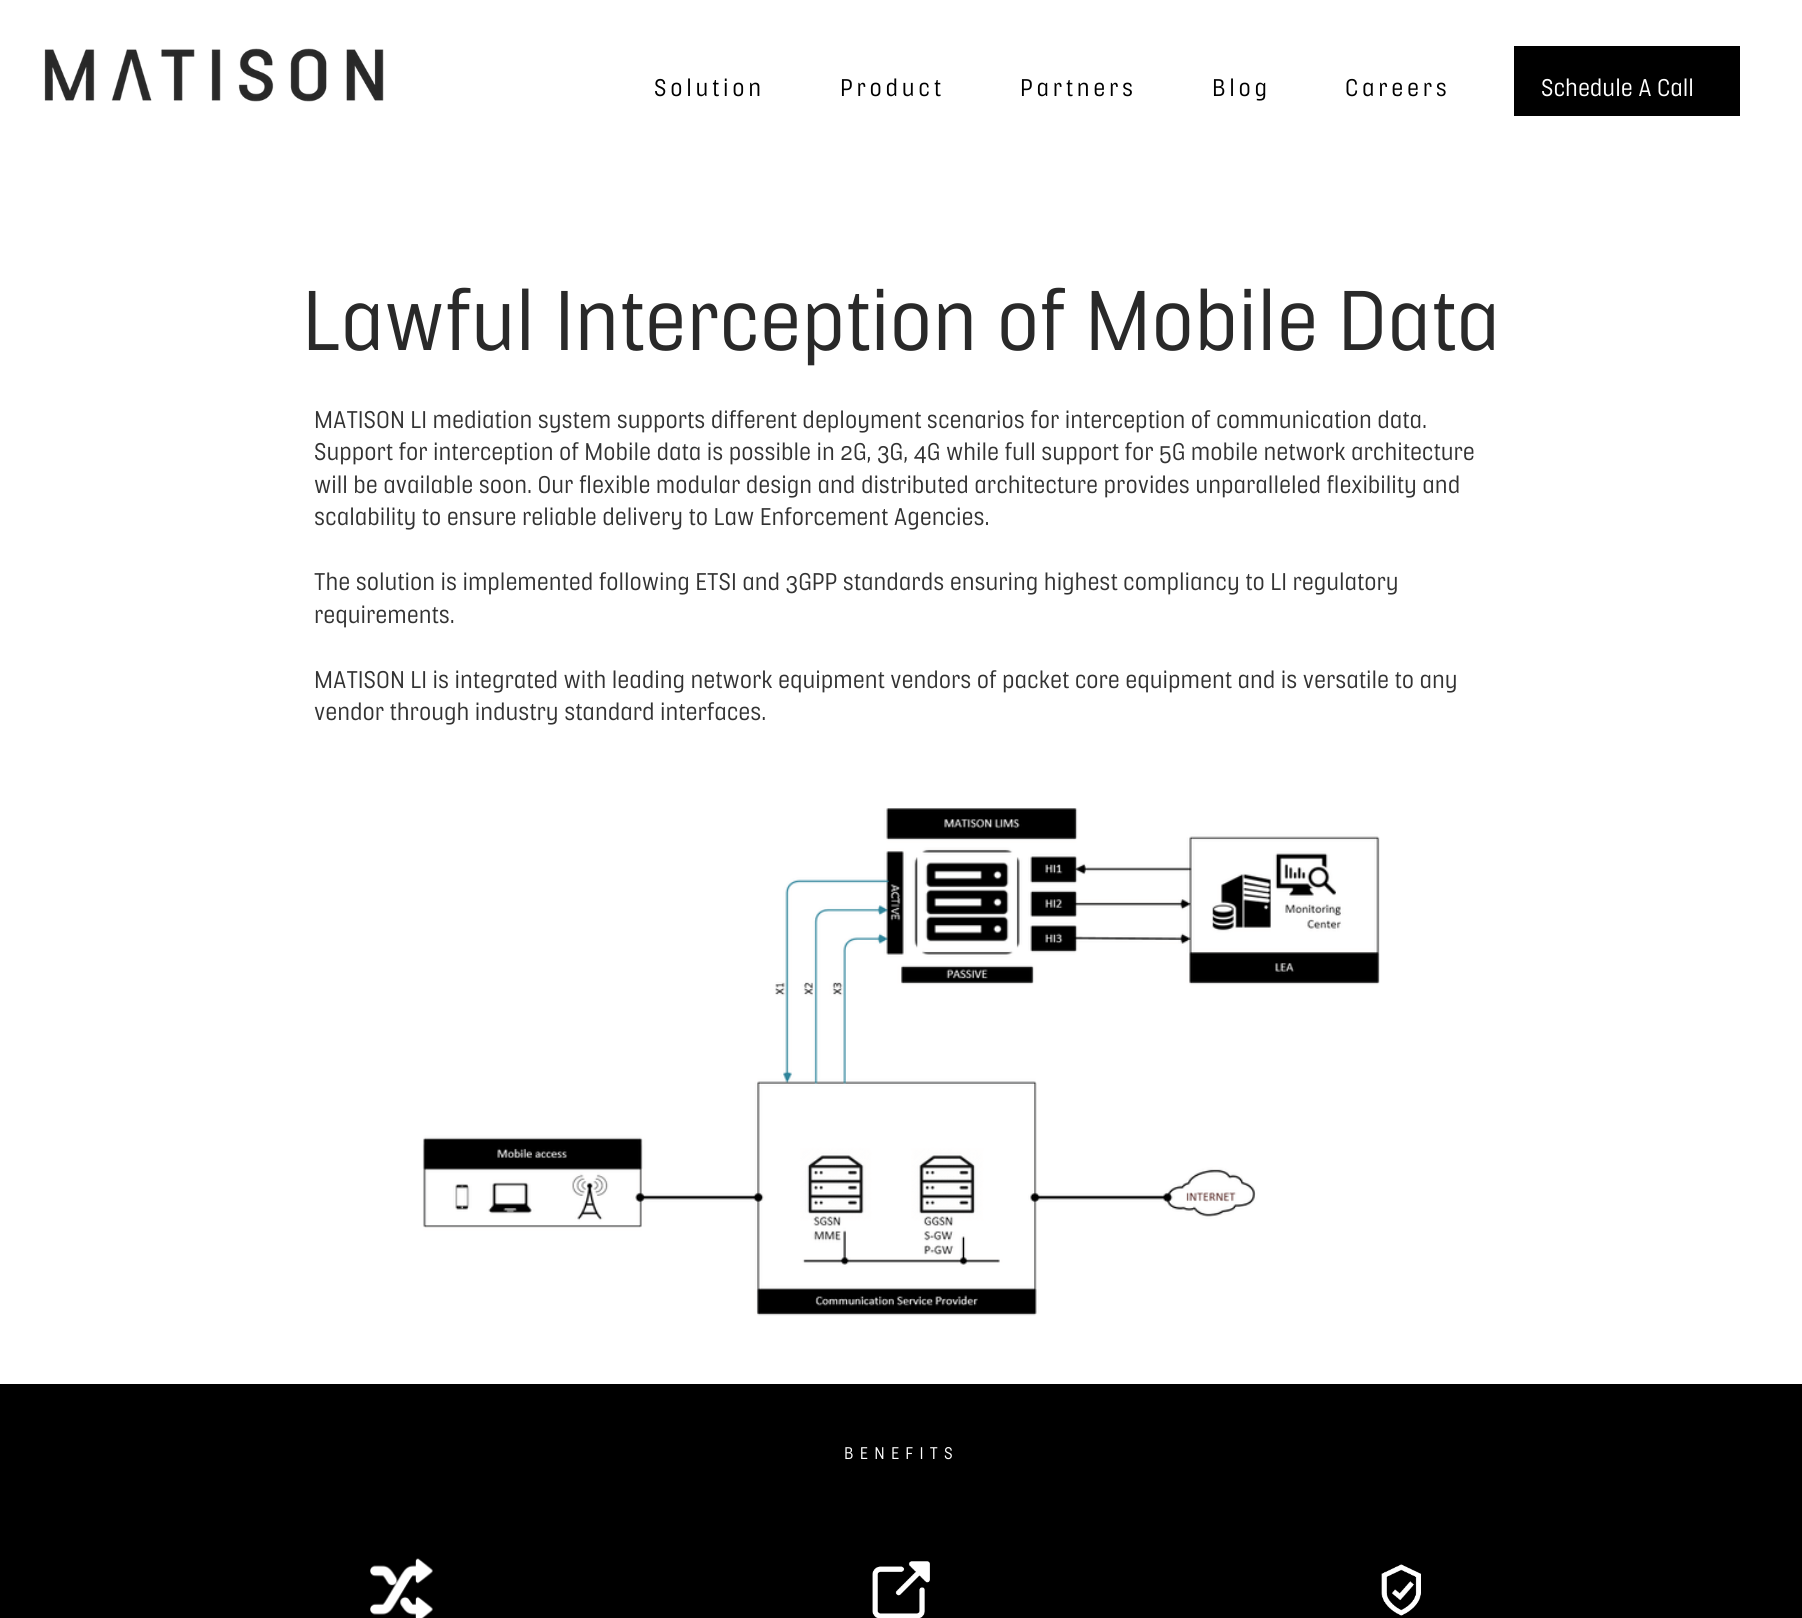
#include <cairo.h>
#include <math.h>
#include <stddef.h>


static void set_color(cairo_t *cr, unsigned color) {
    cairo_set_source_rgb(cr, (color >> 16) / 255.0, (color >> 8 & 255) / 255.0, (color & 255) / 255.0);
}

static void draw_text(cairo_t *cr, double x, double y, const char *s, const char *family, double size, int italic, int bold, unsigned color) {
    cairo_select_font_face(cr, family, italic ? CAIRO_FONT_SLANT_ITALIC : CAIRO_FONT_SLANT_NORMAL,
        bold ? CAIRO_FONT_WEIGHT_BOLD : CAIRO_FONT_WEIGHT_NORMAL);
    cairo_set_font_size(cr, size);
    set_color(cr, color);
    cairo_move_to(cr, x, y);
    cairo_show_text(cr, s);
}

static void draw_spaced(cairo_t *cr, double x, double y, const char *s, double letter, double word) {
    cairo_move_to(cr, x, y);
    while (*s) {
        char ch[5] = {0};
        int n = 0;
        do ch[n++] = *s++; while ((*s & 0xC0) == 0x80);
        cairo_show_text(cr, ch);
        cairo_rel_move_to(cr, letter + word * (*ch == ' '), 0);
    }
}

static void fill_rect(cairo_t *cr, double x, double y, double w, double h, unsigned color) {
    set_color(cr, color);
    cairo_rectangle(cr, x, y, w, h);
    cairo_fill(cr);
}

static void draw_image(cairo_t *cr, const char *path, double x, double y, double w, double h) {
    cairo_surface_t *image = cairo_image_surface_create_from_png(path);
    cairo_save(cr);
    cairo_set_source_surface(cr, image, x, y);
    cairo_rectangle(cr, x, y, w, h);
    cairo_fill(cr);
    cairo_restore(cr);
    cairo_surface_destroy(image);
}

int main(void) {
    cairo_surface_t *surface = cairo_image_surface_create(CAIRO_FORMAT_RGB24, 1802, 1618);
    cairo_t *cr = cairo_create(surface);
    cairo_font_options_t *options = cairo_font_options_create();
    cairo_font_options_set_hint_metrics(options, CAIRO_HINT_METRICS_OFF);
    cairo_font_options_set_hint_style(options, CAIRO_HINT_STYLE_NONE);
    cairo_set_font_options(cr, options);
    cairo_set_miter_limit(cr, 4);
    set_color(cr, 0xFFFFFF);
    cairo_paint(cr);
    draw_image(cr, "assets/img1.png", 44, 48, 340, 54);
    cairo_select_font_face(cr, "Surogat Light", CAIRO_FONT_SLANT_NORMAL, CAIRO_FONT_WEIGHT_NORMAL);
    cairo_set_font_size(cr, 25);
    set_color(cr, 0x000000);
    draw_spaced(cr, 654, 96, "Solution", 3.75, 0);
    draw_spaced(cr, 840, 96, "Product", 3.75, 0);
    draw_spaced(cr, 1020, 96, "Partners", 3.75, 0);
    draw_spaced(cr, 1212, 96, "Blog", 3.75, 0);
    draw_spaced(cr, 1345, 96, "Careers", 3.75, 0);
    fill_rect(cr, 1514, 46, 226, 70, 0x000000);
    draw_text(cr, 1541, 96, "Schedule A Call", "Surogat Light", 25, 0, 0, 0xFFFFFF);
    draw_text(cr, 302, 350, "Lawful Interception of Mobile Data", "Surogat Light", 87.5, 0, 0, 0x292929);
    draw_text(cr, 314, 428, "MATISON LI mediation system supports different deployment scenarios for interception of communication data.", "Surogat Light", 25, 0, 0, 0x333333);
    draw_text(cr, 314, 460, "Support for interception of Mobile data is possible in 2G, 3G, 4G while full support for 5G mobile network architecture", "Surogat Light", 25, 0, 0, 0x333333);
    draw_text(cr, 314, 493, "will be available soon. Our flexible modular design and distributed architecture provides unparalleled flexibility and", "Surogat Light", 25, 0, 0, 0x333333);
    draw_text(cr, 314, 525, "scalability to ensure reliable delivery to Law Enforcement Agencies.", "Surogat Light", 25, 0, 0, 0x333333);
    draw_text(cr, 314, 590, "The solution is implemented following ETSI and 3GPP standards ensuring highest compliancy to LI regulatory", "Surogat Light", 25, 0, 0, 0x333333);
    draw_text(cr, 314, 623, "requirements.", "Surogat Light", 25, 0, 0, 0x333333);
    draw_text(cr, 314, 688, "MATISON LI is integrated with leading network equipment vendors of packet core equipment and is versatile to any", "Surogat Light", 25, 0, 0, 0x333333);
    draw_text(cr, 314, 720, "vendor through industry standard interfaces.", "Surogat Light", 25, 0, 0, 0x333333);
    draw_image(cr, "assets/img2.png", 422, 808, 958, 508);
    fill_rect(cr, 0, 1384, 1802, 234, 0x000000);
    cairo_set_font_size(cr, 17.5);
    set_color(cr, 0xFFFFFF);
    draw_spaced(cr, 844, 1459, "BENEFITS", 6.25, 0);
    draw_image(cr, "assets/img3.png", 370, 1558, 63, 60);
    draw_image(cr, "assets/img4.png", 872, 1561, 58, 57);
    draw_image(cr, "assets/img5.png", 1381, 1564, 40, 52);
    cairo_surface_write_to_png(surface, "output.png");
    cairo_font_options_destroy(options);
    cairo_destroy(cr);
    cairo_surface_destroy(surface);
    return 0;
}
